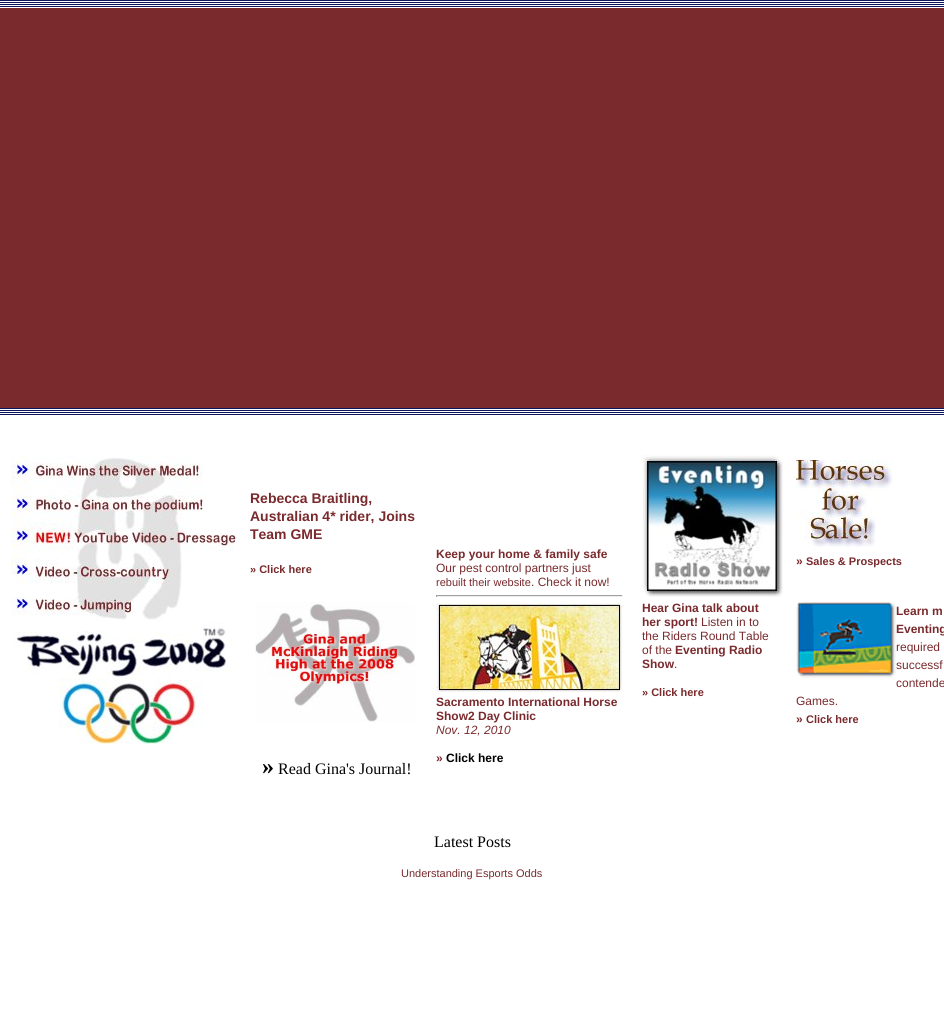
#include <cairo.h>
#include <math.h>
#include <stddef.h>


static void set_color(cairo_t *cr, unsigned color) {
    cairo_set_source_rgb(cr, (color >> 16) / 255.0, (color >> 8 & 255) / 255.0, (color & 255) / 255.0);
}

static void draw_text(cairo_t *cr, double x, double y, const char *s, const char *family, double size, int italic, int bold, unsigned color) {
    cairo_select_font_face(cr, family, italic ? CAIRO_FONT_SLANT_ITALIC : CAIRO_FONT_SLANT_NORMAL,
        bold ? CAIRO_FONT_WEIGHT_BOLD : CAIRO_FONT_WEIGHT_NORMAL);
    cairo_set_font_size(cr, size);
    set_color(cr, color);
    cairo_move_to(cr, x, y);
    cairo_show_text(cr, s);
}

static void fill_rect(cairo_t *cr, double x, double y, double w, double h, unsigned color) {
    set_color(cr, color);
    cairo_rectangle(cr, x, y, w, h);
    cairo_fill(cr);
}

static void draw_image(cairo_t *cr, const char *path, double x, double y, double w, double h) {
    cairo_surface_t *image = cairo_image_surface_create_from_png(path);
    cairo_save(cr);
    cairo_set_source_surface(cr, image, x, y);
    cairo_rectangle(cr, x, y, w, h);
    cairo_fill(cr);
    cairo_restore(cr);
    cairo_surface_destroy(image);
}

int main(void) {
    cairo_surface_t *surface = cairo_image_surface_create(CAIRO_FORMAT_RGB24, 944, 1019);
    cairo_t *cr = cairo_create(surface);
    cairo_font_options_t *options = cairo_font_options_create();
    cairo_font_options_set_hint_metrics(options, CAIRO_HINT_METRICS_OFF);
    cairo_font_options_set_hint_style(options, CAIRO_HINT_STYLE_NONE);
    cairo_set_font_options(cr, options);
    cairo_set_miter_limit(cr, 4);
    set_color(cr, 0xFFFFFF);
    cairo_paint(cr);
    draw_image(cr, "assets/img1.png", 0, 0, 944, 7);
    fill_rect(cr, 0, 8, 944, 400, 0x7A2A2D);
    draw_image(cr, "assets/img1.png", 0, 408, 944, 7);
    draw_image(cr, "assets/img2.png", 11, 455, 226, 289);
    draw_text(cr, 250, 503, "Rebecca Braitling,", "Liberation Sans", 14, 0, 1, 0x7A2A2D);
    draw_text(cr, 250, 521, "Australian 4* rider, Joins", "Liberation Sans", 14, 0, 1, 0x7A2A2D);
    draw_text(cr, 250, 539, "Team GME", "Liberation Sans", 14, 0, 1, 0x7A2A2D);
    draw_text(cr, 250, 573, "» Click here", "Liberation Sans", 11, 0, 1, 0x7A2A2D);
    draw_image(cr, "assets/img3.png", 255, 602, 160, 120);
    draw_text(cr, 262, 774, "»", "Liberation Serif", 24, 0, 1, 0x000000);
    draw_text(cr, 278, 774, "Read Gina's Journal!", "Liberation Serif", 16, 0, 0, 0x000000);
    draw_text(cr, 436, 558, "Keep your home & family safe", "Liberation Sans", 12, 0, 1, 0x7A2A2D);
    draw_text(cr, 436, 572, "Our pest control partners just", "Liberation Sans", 12, 0, 0, 0x7A2A2D);
    draw_text(cr, 436, 586, "rebuilt their website", "Liberation Sans", 11, 0, 0, 0x7A2A2D);
    draw_text(cr, 531, 586, ". Check it now!", "Liberation Sans", 12, 0, 0, 0x7A2A2D);
    fill_rect(cr, 436, 595, 187, 1, 0x9F9F9F);
    fill_rect(cr, 622, 595, 1, 2, 0xEEEEEE);
    fill_rect(cr, 436, 596, 187, 1, 0xEEEEEE);
    fill_rect(cr, 436, 595, 1, 2, 0x9F9F9F);
    draw_image(cr, "assets/img4.png", 436, 603, 187, 89);
    draw_text(cr, 436, 706, "Sacramento International Horse", "Liberation Sans", 12, 0, 1, 0x7A2A2D);
    draw_text(cr, 436, 720, "Show2 Day Clinic", "Liberation Sans", 12, 0, 1, 0x7A2A2D);
    draw_text(cr, 436, 734, "Nov. 12, 2010", "Liberation Sans", 12, 1, 0, 0x7A2A2D);
    draw_text(cr, 436, 762, "»", "Liberation Sans", 12, 0, 1, 0x7A2A2D);
    draw_text(cr, 446, 762, "Click here", "Liberation Sans", 12, 0, 1, 0x000000);
    draw_image(cr, "assets/img5.png", 642, 455, 142, 142);
    draw_text(cr, 642, 612, "Hear Gina talk about", "Liberation Sans", 12, 0, 1, 0x7A2A2D);
    draw_text(cr, 642, 626, "her sport!", "Liberation Sans", 12, 0, 1, 0x7A2A2D);
    draw_text(cr, 701, 626, "Listen in to", "Liberation Sans", 12, 0, 0, 0x7A2A2D);
    draw_text(cr, 642, 640, "the Riders Round Table", "Liberation Sans", 12, 0, 0, 0x7A2A2D);
    draw_text(cr, 642, 654, "of the", "Liberation Sans", 12, 0, 0, 0x7A2A2D);
    draw_text(cr, 675, 654, "Eventing Radio", "Liberation Sans", 12, 0, 1, 0x7A2A2D);
    draw_text(cr, 642, 668, "Show", "Liberation Sans", 12, 0, 1, 0x7A2A2D);
    draw_text(cr, 674, 668, ".", "Liberation Sans", 12, 0, 0, 0x7A2A2D);
    draw_text(cr, 642, 696, "» Click here", "Liberation Sans", 11, 0, 1, 0x7A2A2D);
    draw_image(cr, "assets/img6.png", 796, 460, 97, 87);
    draw_text(cr, 796, 565, "»", "Liberation Sans", 12, 0, 1, 0x7A2A2D);
    draw_text(cr, 806, 565, "Sales & Prospects", "Liberation Sans", 11, 0, 1, 0x7A2A2D);
    draw_image(cr, "assets/img7.png", 796, 602, 100, 76);
    draw_text(cr, 896, 615, "Learn m", "Liberation Sans", 12, 0, 1, 0x7A2A2D);
    draw_text(cr, 896, 633, "Eventing", "Liberation Sans", 12, 0, 1, 0x7A2A2D);
    draw_text(cr, 896, 651, "required", "Liberation Sans", 12, 0, 0, 0x7A2A2D);
    draw_text(cr, 896, 669, "successf", "Liberation Sans", 12, 0, 0, 0x7A2A2D);
    draw_text(cr, 896, 687, "contende", "Liberation Sans", 12, 0, 0, 0x7A2A2D);
    draw_text(cr, 796, 705, "Games.", "Liberation Sans", 12, 0, 0, 0x7A2A2D);
    draw_text(cr, 796, 723, "»", "Liberation Sans", 12, 0, 1, 0x7A2A2D);
    draw_text(cr, 806, 723, "Click here", "Liberation Sans", 11, 0, 1, 0x7A2A2D);
    draw_text(cr, 434, 847, "Latest Posts", "Liberation Serif", 16, 0, 0, 0x000000);
    draw_text(cr, 401, 877, "Understanding Esports Odds", "Liberation Sans", 11, 0, 0, 0x7A2A2D);
    cairo_surface_write_to_png(surface, "output.png");
    cairo_font_options_destroy(options);
    cairo_destroy(cr);
    cairo_surface_destroy(surface);
    return 0;
}
